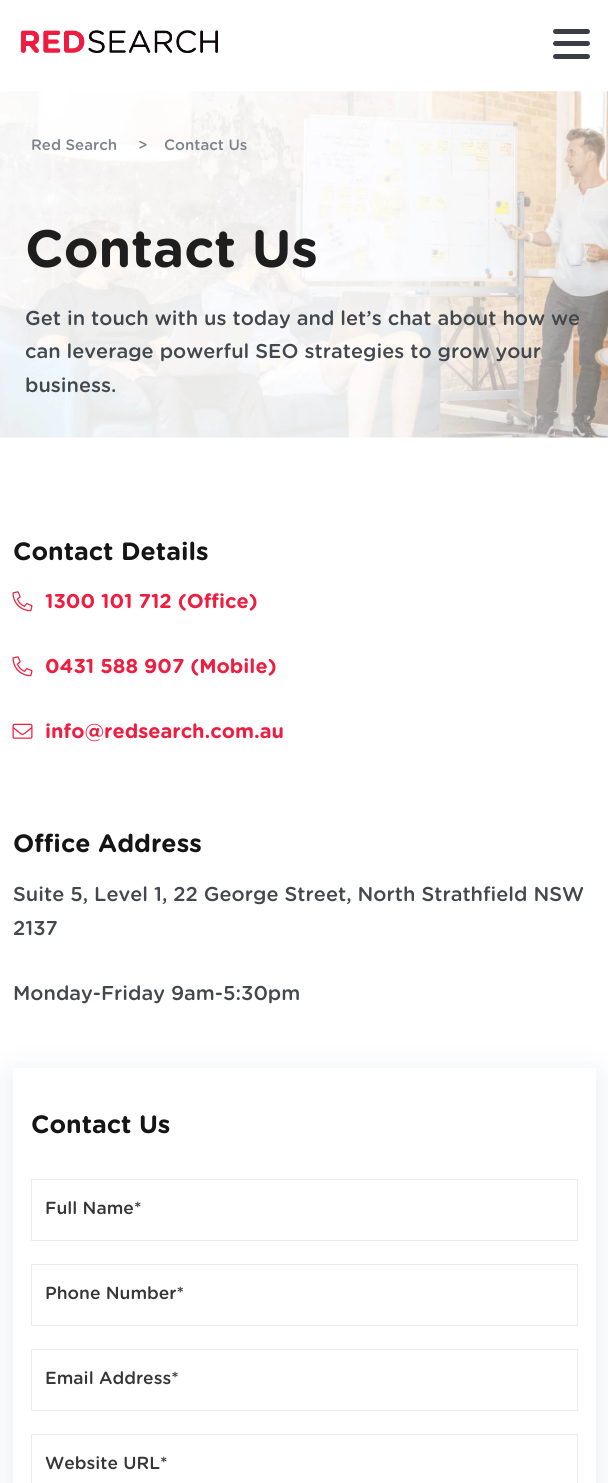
#include <cairo.h>
#include <math.h>
#include <stddef.h>


static void set_color(cairo_t *cr, unsigned color) {
    cairo_set_source_rgb(cr, (color >> 16) / 255.0, (color >> 8 & 255) / 255.0, (color & 255) / 255.0);
}

static void draw_text(cairo_t *cr, double x, double y, const char *s, const char *family, double size, int italic, int bold, unsigned color) {
    cairo_select_font_face(cr, family, italic ? CAIRO_FONT_SLANT_ITALIC : CAIRO_FONT_SLANT_NORMAL,
        bold ? CAIRO_FONT_WEIGHT_BOLD : CAIRO_FONT_WEIGHT_NORMAL);
    cairo_set_font_size(cr, size);
    set_color(cr, color);
    cairo_move_to(cr, x, y);
    cairo_show_text(cr, s);
}

static void rounded_rect(cairo_t *cr, double x, double y, double w, double h, double r) {
    cairo_new_sub_path(cr);
    cairo_arc(cr, x + w - r, y + h - r, r, 0, M_PI / 2);
    cairo_arc(cr, x + r, y + h - r, r, M_PI / 2, M_PI);
    cairo_arc(cr, x + r, y + r, r, M_PI, 1.5 * M_PI);
    cairo_arc(cr, x + w - r, y + r, r, 1.5 * M_PI, 2 * M_PI);
    cairo_close_path(cr);
}

static void draw_shadow(cairo_t *cr, double x, double y, double w, double h, double r, double blur, double alpha) {
    cairo_push_group_with_content(cr, CAIRO_CONTENT_ALPHA);
    cairo_set_operator(cr, CAIRO_OPERATOR_SOURCE);
    for (int i = 15; i >= -15 && fmin(w, h) + blur * i / 3 > 0; i -= 2) {
        double e = blur * i / 6;
        cairo_set_source_rgba(cr, 0, 0, 0, alpha * erfc((i - 1) / 8.5) / 2);
        rounded_rect(cr, x - e, y - e, w + 2 * e, h + 2 * e, fmax(0, fmin(r + e + blur * .6, fmin(w, h) / 2 + e)));
        cairo_fill(cr);
    }
    cairo_pattern_t *soft = cairo_pop_group(cr);
    cairo_mask(cr, soft);
    cairo_pattern_destroy(soft);
}

static void draw_image(cairo_t *cr, const char *path, double x, double y, double w, double h) {
    cairo_surface_t *image = cairo_image_surface_create_from_png(path);
    cairo_save(cr);
    cairo_set_source_surface(cr, image, x, y);
    cairo_rectangle(cr, x, y, w, h);
    cairo_fill(cr);
    cairo_restore(cr);
    cairo_surface_destroy(image);
}

int main(void) {
    cairo_surface_t *surface = cairo_image_surface_create(CAIRO_FORMAT_RGB24, 608, 1483);
    cairo_t *cr = cairo_create(surface);
    cairo_font_options_t *options = cairo_font_options_create();
    cairo_font_options_set_hint_metrics(options, CAIRO_HINT_METRICS_OFF);
    cairo_font_options_set_hint_style(options, CAIRO_HINT_STYLE_NONE);
    cairo_set_font_options(cr, options);
    cairo_set_miter_limit(cr, 4);
    set_color(cr, 0xFFFFFF);
    cairo_paint(cr);
    draw_image(cr, "assets/img1.png", 20, 30, 198, 23);
    set_color(cr, 0x3A3E44);
    rounded_rect(cr, 553, 29, 37, 5, 2.5);
    cairo_fill(cr);
    rounded_rect(cr, 553, 41, 37, 5, 2.5);
    cairo_fill(cr);
    rounded_rect(cr, 553, 54, 37, 5, 2.5);
    cairo_fill(cr);
    draw_image(cr, "assets/img2.png", 0, 91, 608, 347);
    draw_text(cr, 31, 150, "Red Search", "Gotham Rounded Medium", 15, 0, 0, 0x7B838D);
    draw_text(cr, 138, 150, ">", "Gotham Rounded Medium", 15, 0, 0, 0x7B838D);
    draw_text(cr, 164, 150, "Contact Us", "Gotham Rounded Medium", 15, 0, 0, 0x7B838D);
    draw_text(cr, 25, 267, "Contact Us", "Gotham Rounded", 52.5, 0, 1, 0x1E1E1E);
    draw_text(cr, 25, 325, "Get in touch with us today and let’s chat about how we", "Gotham Rounded Medium", 20, 0, 0, 0x43484E);
    draw_text(cr, 25, 358, "can leverage powerful SEO strategies to grow your", "Gotham Rounded Medium", 20, 0, 0, 0x43484E);
    draw_text(cr, 25, 392, "business.", "Gotham Rounded Medium", 20, 0, 0, 0x43484E);
    draw_text(cr, 13, 560, "Contact Details", "Gotham Rounded", 25, 0, 1, 0x151515);
    draw_image(cr, "assets/img3.png", 12, 591, 21, 21);
    draw_text(cr, 45, 608, "1300 101 712 (Office)", "Gotham Rounded", 20, 0, 1, 0xEE1E40);
    draw_image(cr, "assets/img3.png", 12, 656, 21, 21);
    draw_text(cr, 45, 673, "0431 588 907 (Mobile)", "Gotham Rounded", 20, 0, 1, 0xEE1E40);
    draw_image(cr, "assets/img4.png", 12, 723, 21, 16);
    draw_text(cr, 45, 738, "info@redsearch.com.au", "Gotham Rounded", 20, 0, 1, 0xEE1E40);
    draw_text(cr, 13, 852, "Office Address", "Gotham Rounded", 25, 0, 1, 0x151515);
    draw_text(cr, 13, 901, "Suite 5, Level 1, 22 George Street, North Strathfield NSW", "Gotham Rounded Medium", 20, 0, 0, 0x43484E);
    draw_text(cr, 13, 935, "2137", "Gotham Rounded Medium", 20, 0, 0, 0x43484E);
    draw_text(cr, 13, 1000, "Monday-Friday 9am-5:30pm", "Gotham Rounded Medium", 20, 0, 0, 0x43484E);
    cairo_save(cr);
    cairo_set_fill_rule(cr, CAIRO_FILL_RULE_EVEN_ODD);
    cairo_new_path(cr);
    cairo_move_to(cr, 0, 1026);
    cairo_line_to(cr, 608, 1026);
    cairo_line_to(cr, 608, 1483);
    cairo_line_to(cr, 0, 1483);
    cairo_close_path(cr);
    cairo_move_to(cr, 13, 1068);
    cairo_line_to(cr, 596, 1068);
    cairo_line_to(cr, 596, 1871);
    cairo_line_to(cr, 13, 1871);
    cairo_close_path(cr);
    cairo_clip(cr);
    set_color(cr, 0xE9ECF1);
    draw_shadow(cr, 13, 1075, 583, 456, 0, 16, 1);
    cairo_restore(cr);
    draw_text(cr, 31, 1133, "Contact Us", "Gotham Rounded", 25, 0, 1, 0x151515);
    cairo_rectangle(cr, 31.5, 1179.5, 546, 61);
    set_color(cr, 0xE9ECF1);
    cairo_set_line_width(cr, 1);
    cairo_stroke(cr);
    draw_text(cr, 45, 1214, "Full Name*", "Gotham Rounded Medium", 17.5, 0, 0, 0x363636);
    cairo_rectangle(cr, 31.5, 1264.5, 546, 61);
    set_color(cr, 0xE9ECF1);
    cairo_stroke(cr);
    draw_text(cr, 45, 1299, "Phone Number*", "Gotham Rounded Medium", 17.5, 0, 0, 0x363636);
    cairo_rectangle(cr, 31.5, 1349.5, 546, 61);
    set_color(cr, 0xE9ECF1);
    cairo_stroke(cr);
    draw_text(cr, 45, 1384, "Email Address*", "Gotham Rounded Medium", 17.5, 0, 0, 0x363636);
    cairo_rectangle(cr, 31.5, 1434.5, 546, 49);
    set_color(cr, 0xE9ECF1);
    cairo_stroke(cr);
    draw_text(cr, 45, 1469, "Website URL*", "Gotham Rounded Medium", 17.5, 0, 0, 0x363636);
    cairo_surface_write_to_png(surface, "output.png");
    cairo_font_options_destroy(options);
    cairo_destroy(cr);
    cairo_surface_destroy(surface);
    return 0;
}
